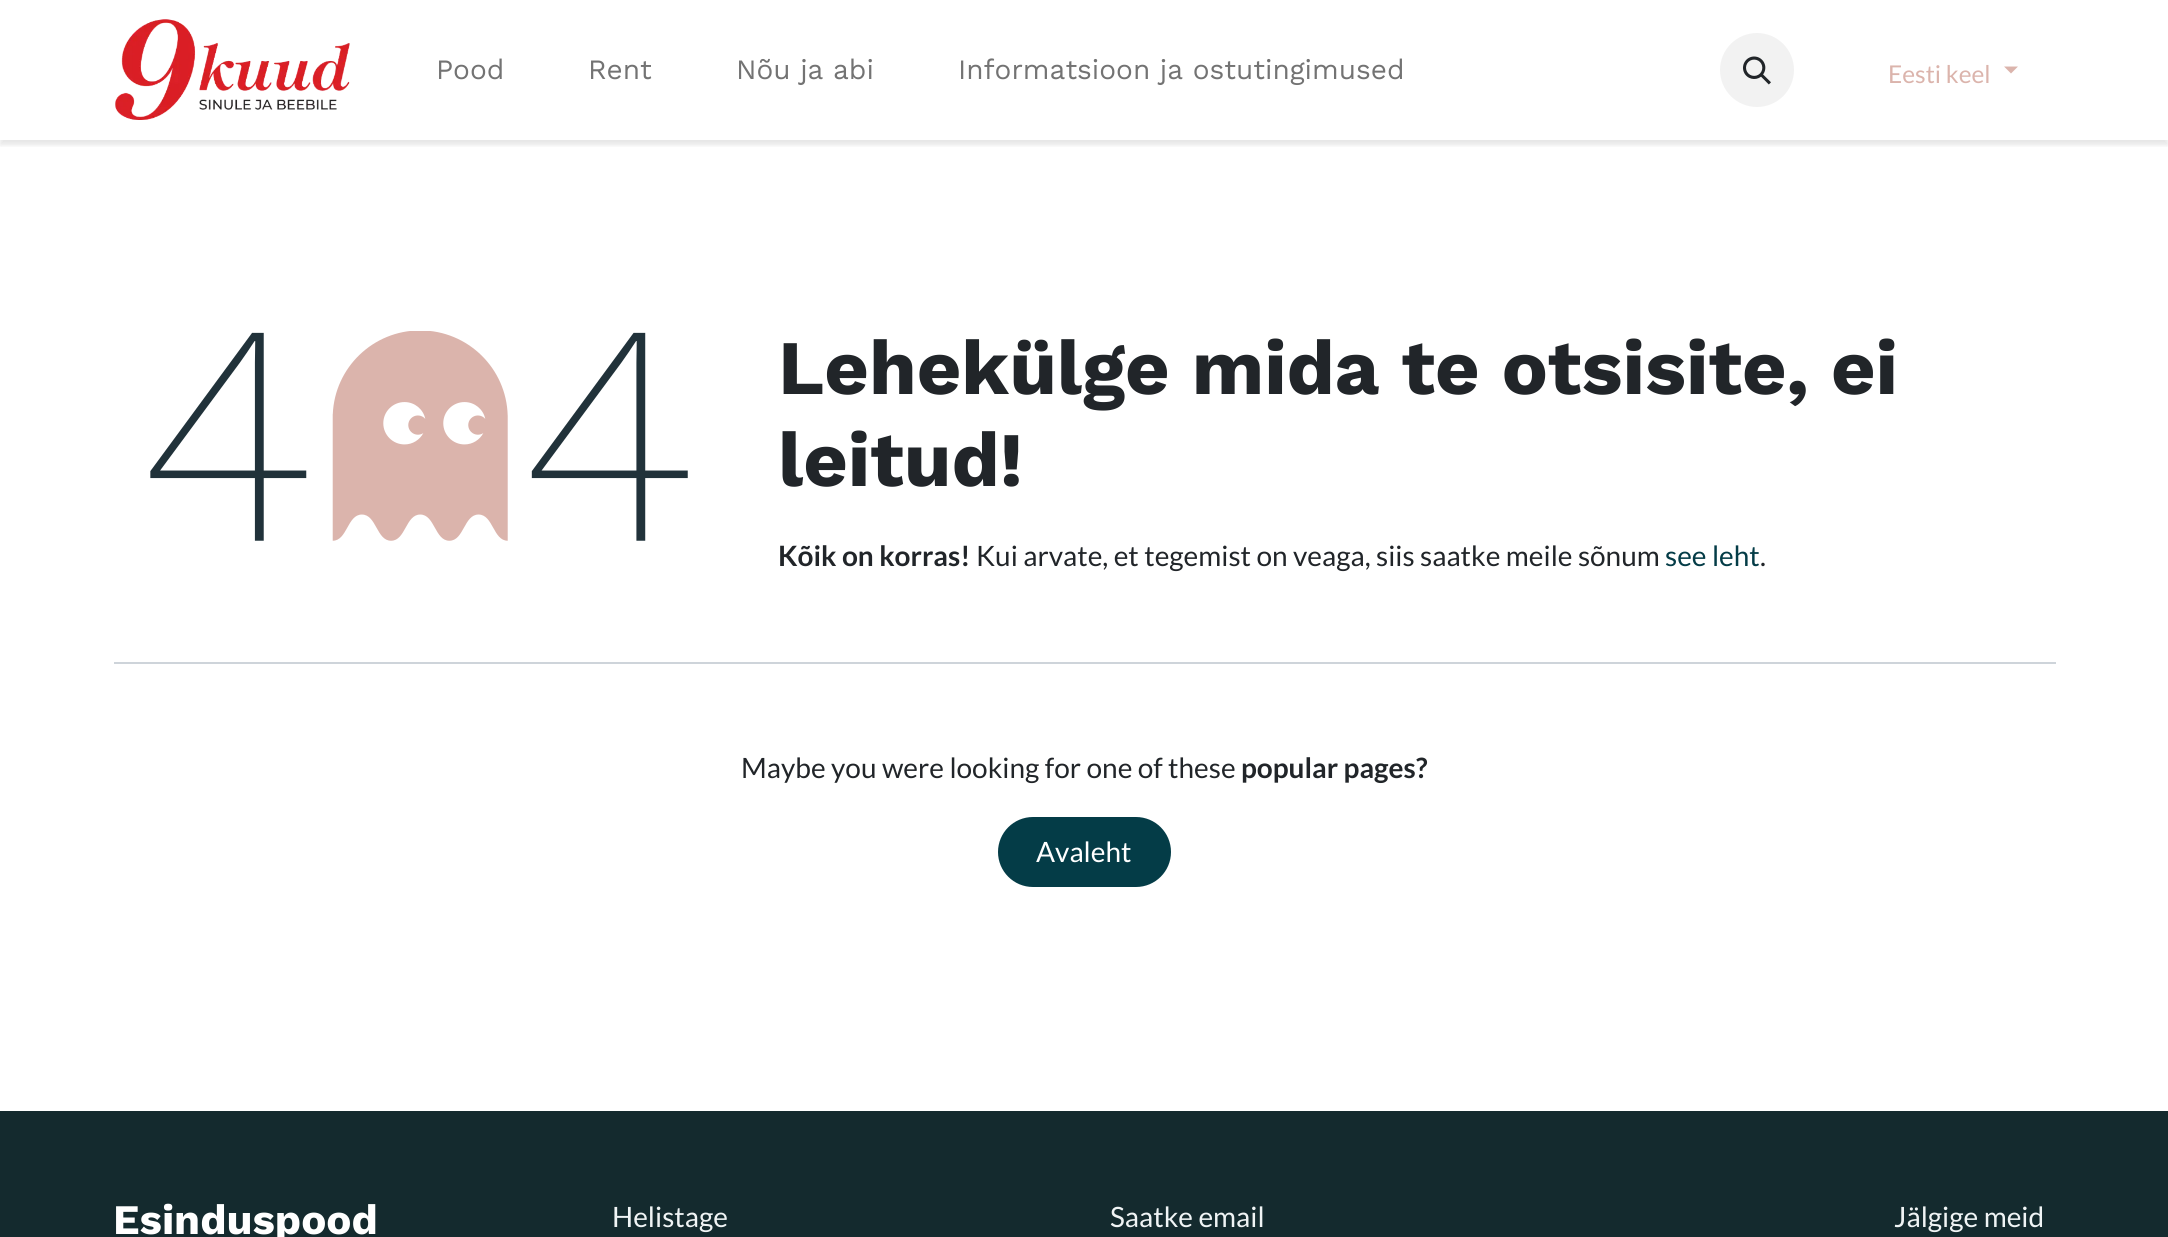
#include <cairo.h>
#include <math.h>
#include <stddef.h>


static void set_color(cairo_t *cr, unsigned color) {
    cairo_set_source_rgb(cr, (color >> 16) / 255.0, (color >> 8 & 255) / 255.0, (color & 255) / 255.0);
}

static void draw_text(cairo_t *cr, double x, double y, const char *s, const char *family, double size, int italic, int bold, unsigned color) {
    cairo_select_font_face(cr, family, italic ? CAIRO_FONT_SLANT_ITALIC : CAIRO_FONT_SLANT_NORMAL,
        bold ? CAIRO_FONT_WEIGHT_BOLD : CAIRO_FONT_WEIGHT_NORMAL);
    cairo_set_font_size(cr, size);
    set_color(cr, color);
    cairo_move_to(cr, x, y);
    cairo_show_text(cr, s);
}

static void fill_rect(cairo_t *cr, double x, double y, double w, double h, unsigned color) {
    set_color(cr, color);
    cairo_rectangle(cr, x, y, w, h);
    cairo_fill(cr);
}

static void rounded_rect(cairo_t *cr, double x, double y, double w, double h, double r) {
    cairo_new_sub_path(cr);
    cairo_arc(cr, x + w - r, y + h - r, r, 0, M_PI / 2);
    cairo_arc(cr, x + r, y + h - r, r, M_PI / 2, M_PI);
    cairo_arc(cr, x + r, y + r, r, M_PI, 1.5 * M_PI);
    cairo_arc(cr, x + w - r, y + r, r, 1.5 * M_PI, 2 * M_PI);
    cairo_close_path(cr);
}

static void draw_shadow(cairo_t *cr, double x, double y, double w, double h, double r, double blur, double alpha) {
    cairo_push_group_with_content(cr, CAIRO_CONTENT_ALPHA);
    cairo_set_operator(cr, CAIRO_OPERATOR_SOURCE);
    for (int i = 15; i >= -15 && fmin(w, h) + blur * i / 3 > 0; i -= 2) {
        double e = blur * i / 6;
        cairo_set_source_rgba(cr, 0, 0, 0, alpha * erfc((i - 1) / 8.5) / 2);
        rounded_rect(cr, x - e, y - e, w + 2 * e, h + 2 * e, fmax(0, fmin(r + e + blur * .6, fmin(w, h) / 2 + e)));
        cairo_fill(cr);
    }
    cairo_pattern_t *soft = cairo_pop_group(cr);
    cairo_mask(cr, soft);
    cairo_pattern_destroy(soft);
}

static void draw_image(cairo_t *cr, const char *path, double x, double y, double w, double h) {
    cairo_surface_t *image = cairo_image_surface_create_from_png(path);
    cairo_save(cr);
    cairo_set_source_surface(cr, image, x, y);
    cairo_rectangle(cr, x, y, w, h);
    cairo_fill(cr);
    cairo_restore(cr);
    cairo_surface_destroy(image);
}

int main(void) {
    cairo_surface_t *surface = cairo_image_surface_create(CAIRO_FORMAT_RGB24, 2168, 1237);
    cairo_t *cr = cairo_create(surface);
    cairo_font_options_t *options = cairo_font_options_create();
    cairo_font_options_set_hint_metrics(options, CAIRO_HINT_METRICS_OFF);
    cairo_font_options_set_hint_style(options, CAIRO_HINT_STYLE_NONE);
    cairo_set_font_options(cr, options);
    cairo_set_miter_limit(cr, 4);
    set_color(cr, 0xFFFFFF);
    cairo_paint(cr);
    cairo_save(cr);
    cairo_rectangle(cr, 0, 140, 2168, 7);
    cairo_clip(cr);
    set_color(cr, 0x000000);
    draw_shadow(cr, 0, 5, 2168, 140, 0, 2.5, 0.1);
    cairo_restore(cr);
    draw_image(cr, "assets/img1.png", 115, 19, 235, 101);
    draw_text(cr, 436, 79, "Pood", "Work Sans", 28, 0, 0, 0x737373);
    draw_text(cr, 588, 79, "Rent", "Work Sans", 28, 0, 0, 0x737373);
    draw_text(cr, 736, 79, "Nõu ja abi", "Work Sans", 28, 0, 0, 0x737373);
    draw_text(cr, 958, 79, "Informatsioon ja ostutingimused", "Work Sans", 28, 0, 0, 0x737373);
    set_color(cr, 0xF2F2F2);
    cairo_new_path(cr);
    cairo_arc(cr, 1757, 70, 37, 0, 2 * M_PI);
    cairo_fill(cr);
    draw_image(cr, "assets/img2.png", 1743, 56, 28, 29);
    draw_text(cr, 1888, 83, "Eesti keel", "Lato", 24.5, 0, 0, 0xDBB4AC);
    cairo_new_path(cr);
    cairo_move_to(cr, 2004, 66.5);
    cairo_line_to(cr, 2018, 66.5);
    cairo_line_to(cr, 2011, 73.5);
    cairo_close_path(cr);
    cairo_fill(cr);
    draw_image(cr, "assets/img3.png", 150, 331, 538, 210);
    draw_text(cr, 778, 394, "Lehekülge mida te otsisite, ei", "Work Sans", 77, 0, 1, 0x212529);
    draw_text(cr, 778, 486, "leitud!", "Work Sans", 77, 0, 1, 0x212529);
    draw_text(cr, 778, 566, "Kõik on korras!", "Lato", 28, 0, 1, 0x212529);
    draw_text(cr, 976, 566, "Kui arvate, et tegemist on veaga, siis saatke meile sõnum", "Lato", 28, 0, 0, 0x212529);
    draw_text(cr, 1665, 566, "see leht", "Lato", 28, 0, 0, 0x043C47);
    draw_text(cr, 1760, 566, ".", "Lato", 28, 0, 0, 0x212529);
    fill_rect(cr, 114, 662, 1942, 2, 0xCED4DA);
    draw_text(cr, 741, 778, "Maybe you were looking for one of these", "Lato", 28, 0, 0, 0x212529);
    draw_text(cr, 1241, 778, "popular pages?", "Lato", 28, 0, 1, 0x212529);
    set_color(cr, 0x043C47);
    rounded_rect(cr, 999, 818, 171, 68, 34);
    cairo_fill_preserve(cr);
    cairo_stroke(cr);
    draw_text(cr, 1036, 862, "Avaleht", "Lato", 28, 0, 0, 0xFFFFFF);
    fill_rect(cr, 0, 1111, 2168, 126, 0x142A2E);
    draw_text(cr, 113, 1234, "Esinduspood", "Work Sans", 42, 0, 1, 0xFFFFFF);
    draw_text(cr, 612, 1227, "Helistage", "Lato", 28, 0, 0, 0xF0F4F5);
    draw_text(cr, 1110, 1227, "Saatke email", "Lato", 28, 0, 0, 0xF0F4F5);
    draw_text(cr, 1894, 1227, "Jälgige meid", "Lato", 28, 0, 0, 0xF0F4F5);
    cairo_surface_write_to_png(surface, "output.png");
    cairo_font_options_destroy(options);
    cairo_destroy(cr);
    cairo_surface_destroy(surface);
    return 0;
}
